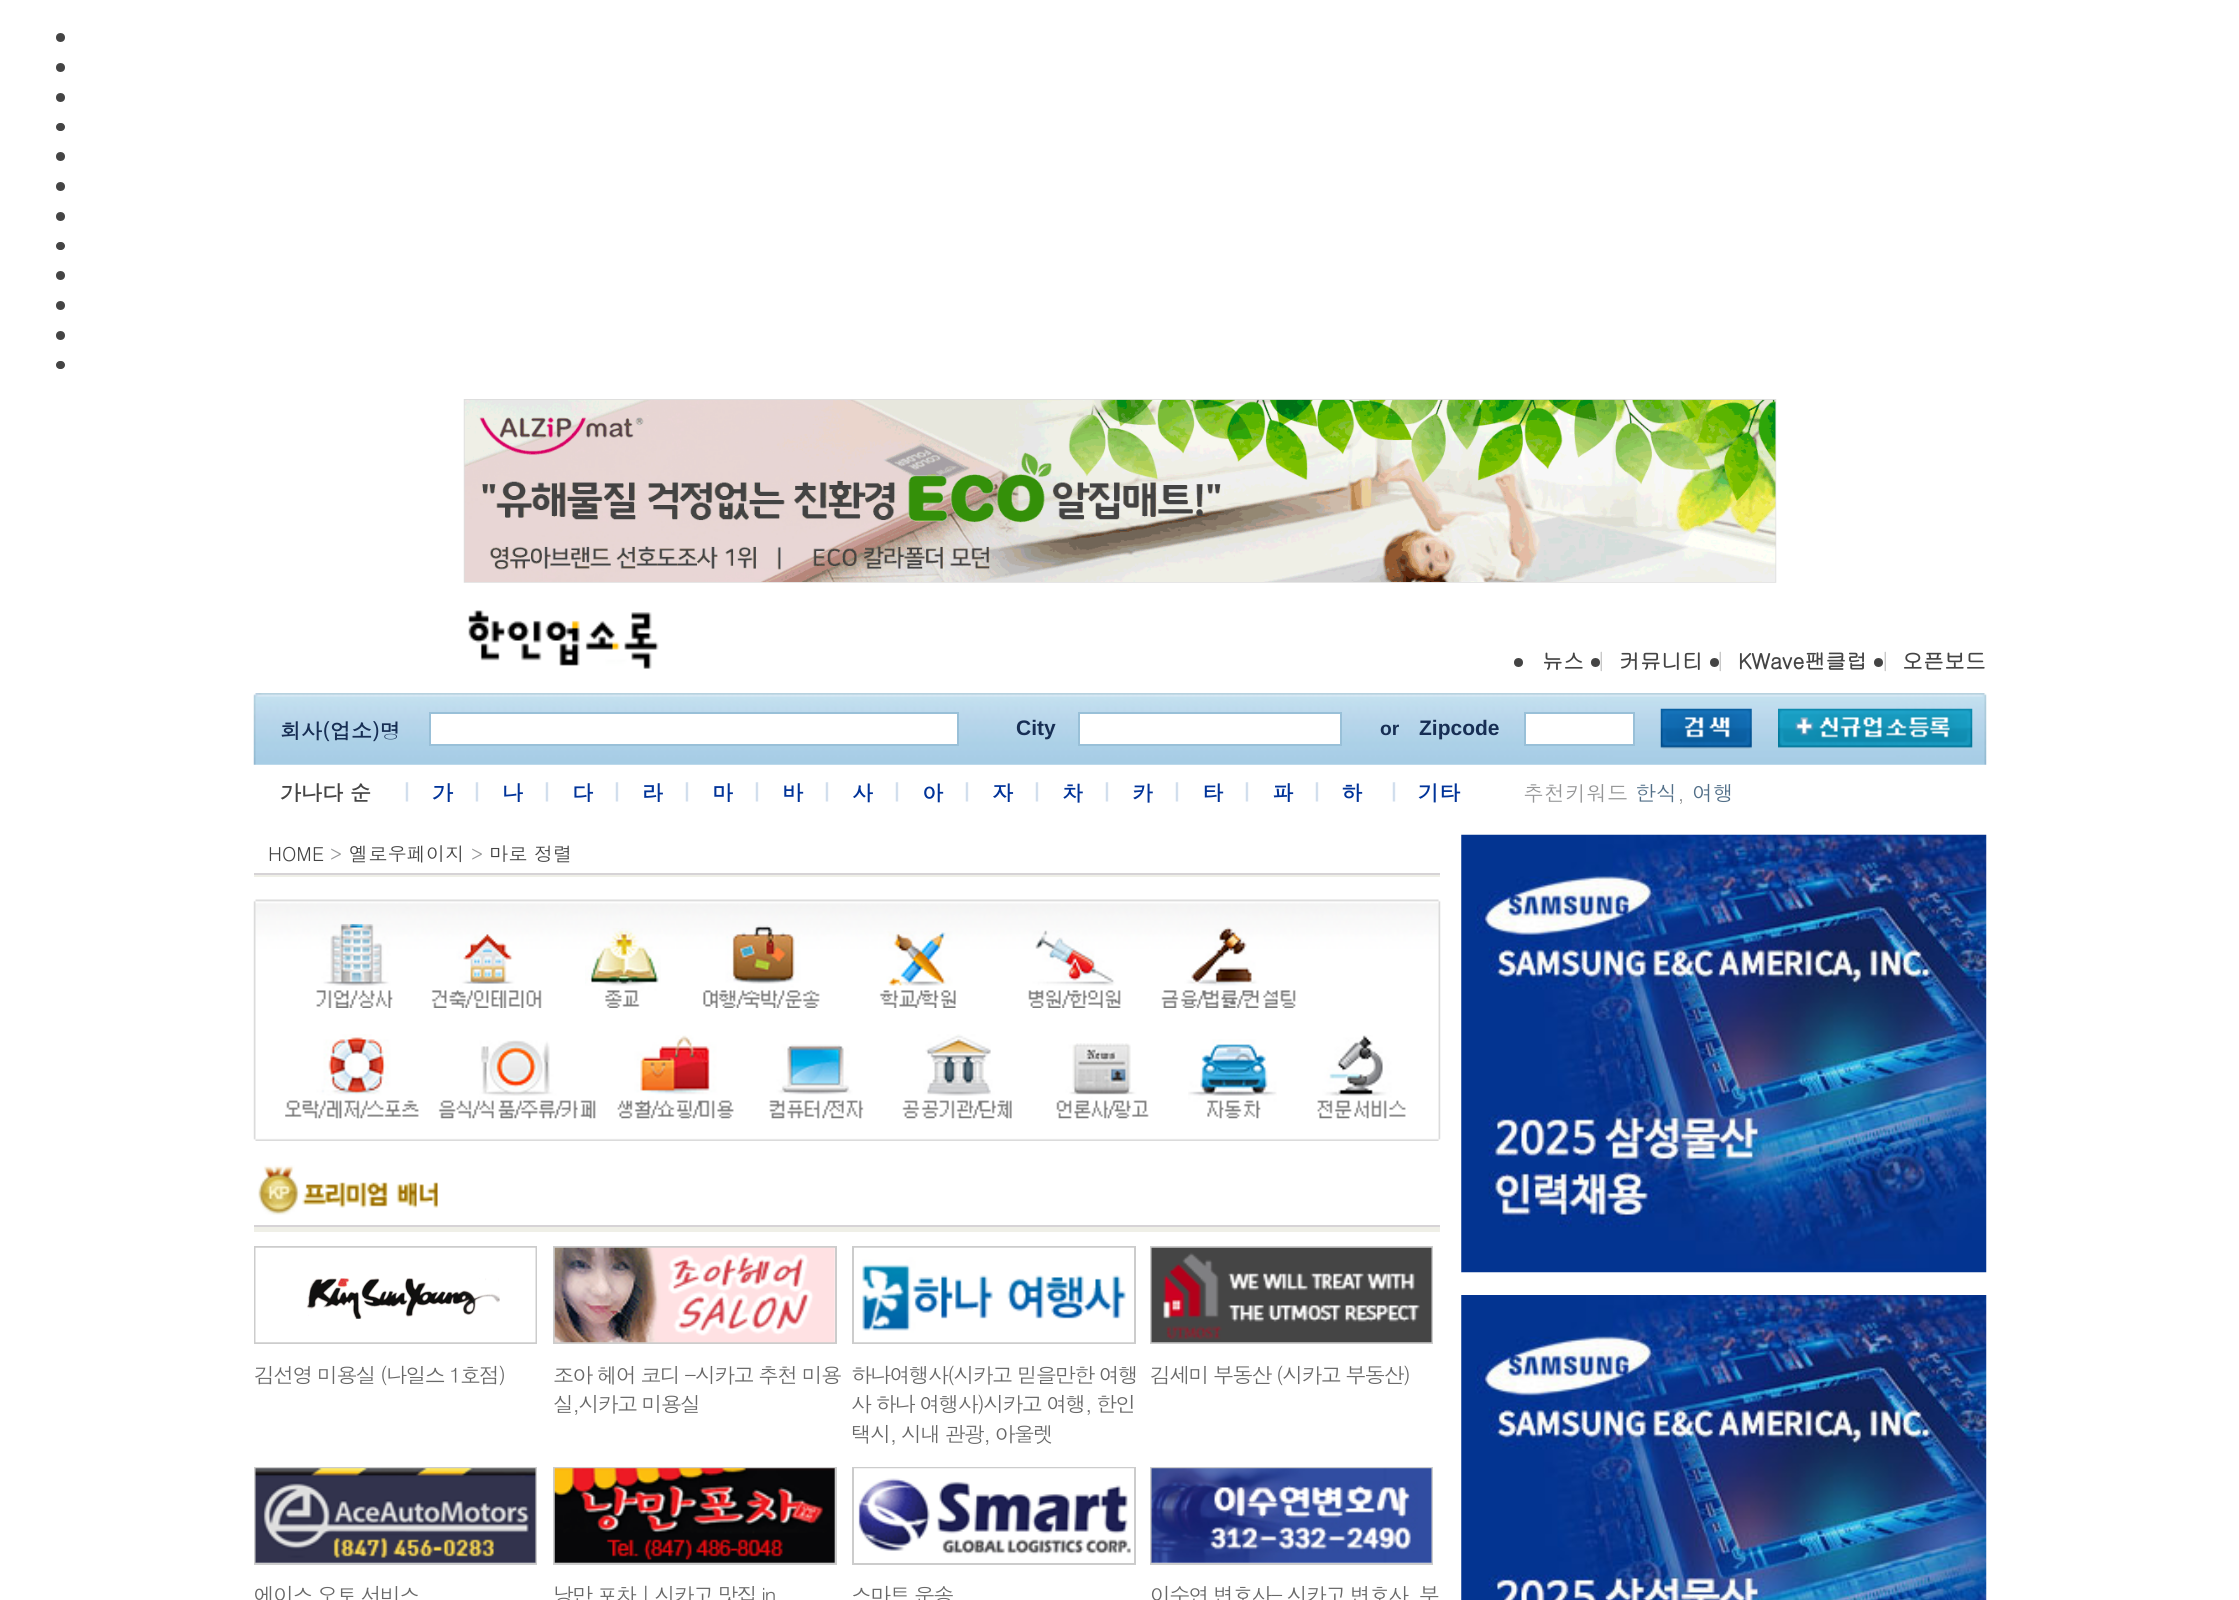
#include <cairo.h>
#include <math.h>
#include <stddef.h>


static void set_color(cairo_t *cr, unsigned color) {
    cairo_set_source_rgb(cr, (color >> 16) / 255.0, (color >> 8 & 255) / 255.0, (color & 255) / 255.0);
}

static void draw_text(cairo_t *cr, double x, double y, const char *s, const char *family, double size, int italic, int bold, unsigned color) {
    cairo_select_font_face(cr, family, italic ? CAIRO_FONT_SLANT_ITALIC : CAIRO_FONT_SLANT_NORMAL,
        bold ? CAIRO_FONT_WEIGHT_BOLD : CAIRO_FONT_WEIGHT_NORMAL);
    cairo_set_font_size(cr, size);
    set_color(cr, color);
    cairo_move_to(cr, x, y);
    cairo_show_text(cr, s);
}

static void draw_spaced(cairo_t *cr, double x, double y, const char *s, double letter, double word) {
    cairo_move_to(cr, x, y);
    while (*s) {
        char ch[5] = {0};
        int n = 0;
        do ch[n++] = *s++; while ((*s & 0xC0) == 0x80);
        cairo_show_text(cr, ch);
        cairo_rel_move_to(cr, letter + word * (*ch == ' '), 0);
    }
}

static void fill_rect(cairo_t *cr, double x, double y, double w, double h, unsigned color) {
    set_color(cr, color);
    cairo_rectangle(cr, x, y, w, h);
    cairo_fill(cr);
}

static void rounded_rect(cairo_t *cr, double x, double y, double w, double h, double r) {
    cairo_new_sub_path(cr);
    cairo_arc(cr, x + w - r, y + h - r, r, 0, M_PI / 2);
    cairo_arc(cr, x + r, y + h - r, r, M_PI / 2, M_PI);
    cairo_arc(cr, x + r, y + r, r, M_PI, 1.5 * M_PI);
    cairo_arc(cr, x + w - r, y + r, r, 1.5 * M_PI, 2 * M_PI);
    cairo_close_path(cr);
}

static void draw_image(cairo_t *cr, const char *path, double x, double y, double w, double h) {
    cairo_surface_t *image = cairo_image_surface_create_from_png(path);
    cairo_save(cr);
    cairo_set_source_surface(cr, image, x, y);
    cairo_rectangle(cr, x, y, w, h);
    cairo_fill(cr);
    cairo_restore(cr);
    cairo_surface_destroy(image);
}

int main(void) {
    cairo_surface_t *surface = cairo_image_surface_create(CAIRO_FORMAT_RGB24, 2239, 1600);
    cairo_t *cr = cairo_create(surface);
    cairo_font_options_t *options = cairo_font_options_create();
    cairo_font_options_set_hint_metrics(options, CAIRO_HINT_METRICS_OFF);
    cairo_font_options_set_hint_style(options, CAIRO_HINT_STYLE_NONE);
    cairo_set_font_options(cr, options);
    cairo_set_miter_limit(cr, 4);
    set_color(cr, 0xFFFFFF);
    cairo_paint(cr);
    set_color(cr, 0x444444);
    cairo_arc(cr, 60.5, 37.5, 4.5, 0, 2 * M_PI);
    cairo_fill(cr);
    cairo_arc(cr, 60.5, 67.5, 4.5, 0, 2 * M_PI);
    cairo_fill(cr);
    cairo_arc(cr, 60.5, 97.5, 4.5, 0, 2 * M_PI);
    cairo_fill(cr);
    rounded_rect(cr, 56, 123, 9, 8, 4);
    cairo_fill(cr);
    cairo_arc(cr, 60.5, 156.5, 4.5, 0, 2 * M_PI);
    cairo_fill(cr);
    cairo_arc(cr, 60.5, 186.5, 4.5, 0, 2 * M_PI);
    cairo_fill(cr);
    cairo_arc(cr, 60.5, 216.5, 4.5, 0, 2 * M_PI);
    cairo_fill(cr);
    rounded_rect(cr, 56, 242, 9, 8, 4);
    cairo_fill(cr);
    cairo_arc(cr, 60.5, 275.5, 4.5, 0, 2 * M_PI);
    cairo_fill(cr);
    cairo_arc(cr, 60.5, 305.5, 4.5, 0, 2 * M_PI);
    cairo_fill(cr);
    cairo_arc(cr, 60.5, 335.5, 4.5, 0, 2 * M_PI);
    cairo_fill(cr);
    rounded_rect(cr, 56, 361, 9, 8, 4);
    cairo_fill(cr);
    draw_image(cr, "assets/img1.png", 463, 399, 1314, 184);
    draw_image(cr, "assets/img2.png", 468, 610, 191, 59);
    cairo_arc(cr, 1518.5, 662.5, 4.5, 0, 2 * M_PI);
    cairo_fill(cr);
    draw_text(cr, 1542, 669, "뉴스", "Gulim", 21, 0, 1, 0x444444);
    draw_text(cr, 1596, 669, "|", "Gulim", 21, 0, 0, 0xC3C3C3);
    set_color(cr, 0x444444);
    cairo_new_path(cr);
    cairo_arc(cr, 1595.5, 662.5, 4.5, 0, 2 * M_PI);
    cairo_fill(cr);
    draw_text(cr, 1619, 669, "커뮤니티", "Gulim", 21, 0, 1, 0x444444);
    draw_text(cr, 1715, 669, "|", "Gulim", 21, 0, 0, 0xC3C3C3);
    set_color(cr, 0x444444);
    cairo_new_path(cr);
    cairo_arc(cr, 1714.5, 662.5, 4.5, 0, 2 * M_PI);
    cairo_fill(cr);
    draw_text(cr, 1738, 669, "KWave팬클럽", "Gulim", 21, 0, 1, 0x444444);
    draw_text(cr, 1880, 669, "|", "Gulim", 21, 0, 0, 0xC3C3C3);
    set_color(cr, 0x444444);
    cairo_new_path(cr);
    cairo_arc(cr, 1878.5, 662.5, 4.5, 0, 2 * M_PI);
    cairo_fill(cr);
    draw_text(cr, 1902, 669, "오픈보드", "Gulim", 21, 0, 1, 0x444444);
    draw_image(cr, "assets/img3.png", 253, 693, 1734, 72);
    draw_text(cr, 280, 739, "회사(업소)명", "Dotum", 21, 0, 1, 0x172E54);
    set_color(cr, 0xFFFFFF);
    cairo_rectangle(cr, 430, 713, 528, 32);
    cairo_fill_preserve(cr);
    set_color(cr, 0x99C0D8);
    cairo_stroke(cr);
    draw_text(cr, 1016, 735, "City", "Liberation Sans", 21, 0, 1, 0x172E54);
    set_color(cr, 0xFFFFFF);
    cairo_rectangle(cr, 1079, 713, 262, 32);
    cairo_fill_preserve(cr);
    set_color(cr, 0x99C0D8);
    cairo_stroke(cr);
    draw_text(cr, 1380, 735, "or", "Liberation Sans", 19.25, 0, 1, 0x172E54);
    draw_text(cr, 1419, 735, "Zipcode", "Liberation Sans", 21, 0, 1, 0x172E54);
    set_color(cr, 0xFFFFFF);
    cairo_rectangle(cr, 1525, 713, 109, 32);
    cairo_fill_preserve(cr);
    set_color(cr, 0x99C0D8);
    cairo_stroke(cr);
    draw_image(cr, "assets/img4.png", 1660, 708, 92, 41);
    draw_image(cr, "assets/img5.png", 1778, 708, 195, 40);
    draw_text(cr, 280, 801, "가나다 순", "Dotum", 21, 0, 1, 0x444444);
    draw_image(cr, "assets/img6.png", 405, 782, 4, 20);
    draw_text(cr, 432, 801, "가", "Dotum", 21, 0, 1, 0x003399);
    draw_image(cr, "assets/img6.png", 475, 782, 4, 20);
    draw_text(cr, 502, 801, "나", "Dotum", 21, 0, 1, 0x003399);
    draw_image(cr, "assets/img6.png", 545, 782, 4, 20);
    draw_text(cr, 572, 801, "다", "Dotum", 21, 0, 1, 0x003399);
    draw_image(cr, "assets/img6.png", 615, 782, 4, 20);
    draw_text(cr, 642, 801, "라", "Dotum", 21, 0, 1, 0x003399);
    draw_image(cr, "assets/img6.png", 685, 782, 4, 20);
    draw_text(cr, 712, 801, "마", "Dotum", 21, 0, 1, 0x003399);
    draw_image(cr, "assets/img6.png", 755, 782, 4, 20);
    draw_text(cr, 782, 801, "바", "Dotum", 21, 0, 1, 0x003399);
    draw_image(cr, "assets/img6.png", 825, 782, 4, 20);
    draw_text(cr, 852, 801, "사", "Dotum", 21, 0, 1, 0x003399);
    draw_image(cr, "assets/img6.png", 895, 782, 4, 20);
    draw_text(cr, 922, 801, "아", "Dotum", 21, 0, 1, 0x003399);
    draw_image(cr, "assets/img6.png", 965, 782, 4, 20);
    draw_text(cr, 992, 801, "자", "Dotum", 21, 0, 1, 0x003399);
    draw_image(cr, "assets/img6.png", 1035, 782, 4, 20);
    draw_text(cr, 1062, 801, "차", "Dotum", 21, 0, 1, 0x003399);
    draw_image(cr, "assets/img6.png", 1105, 782, 4, 20);
    draw_text(cr, 1132, 801, "카", "Dotum", 21, 0, 1, 0x003399);
    draw_image(cr, "assets/img6.png", 1175, 782, 4, 20);
    draw_text(cr, 1202, 801, "타", "Dotum", 21, 0, 1, 0x003399);
    draw_image(cr, "assets/img6.png", 1245, 782, 4, 20);
    draw_text(cr, 1272, 801, "파", "Dotum", 21, 0, 1, 0x003399);
    draw_image(cr, "assets/img6.png", 1315, 782, 4, 20);
    draw_text(cr, 1341, 801, "하", "Dotum", 21, 0, 1, 0x003399);
    draw_image(cr, "assets/img6.png", 1392, 782, 4, 20);
    draw_text(cr, 1418, 801, "기타", "Dotum", 21, 0, 1, 0x003399);
    draw_text(cr, 1523, 801, "추천키워드", "Dotum", 21, 0, 0, 0x959697);
    draw_text(cr, 1635, 801, "한식", "Dotum", 21, 0, 0, 0x526F88);
    draw_text(cr, 1677, 801, ",", "Dotum", 21, 0, 0, 0x959697);
    draw_text(cr, 1692, 801, "여행", "Dotum", 21, 0, 0, 0x526F88);
    draw_text(cr, 268, 861, "HOME", "Dotum", 19.25, 0, 0, 0x444444);
    draw_text(cr, 330, 861, ">", "Dotum", 19.25, 0, 0, 0x959697);
    draw_text(cr, 349, 861, "옐로우페이지", "Dotum", 19.25, 0, 0, 0x444444);
    draw_text(cr, 471, 861, ">", "Dotum", 19.25, 0, 0, 0x959697);
    draw_text(cr, 489, 861, "마로 정렬", "Dotum", 19.25, 0, 0, 0x444444);
    fill_rect(cr, 254, 873, 1186, 2, 0xD6D3D6);
    fill_rect(cr, 254, 875, 1186, 2, 0xEFEFE7);
    draw_image(cr, "assets/img7.png", 253, 899, 1188, 242);
    draw_image(cr, "assets/img8.png", 316, 924, 77, 84);
    draw_image(cr, "assets/img9.png", 431, 932, 111, 76);
    draw_image(cr, "assets/img10.png", 585, 928, 76, 80);
    draw_image(cr, "assets/img11.png", 703, 925, 117, 83);
    draw_image(cr, "assets/img12.png", 879, 931, 77, 77);
    draw_image(cr, "assets/img13.png", 1028, 930, 93, 78);
    draw_image(cr, "assets/img14.png", 1161, 927, 135, 81);
    draw_image(cr, "assets/img15.png", 285, 1034, 134, 85);
    draw_image(cr, "assets/img16.png", 438, 1040, 158, 79);
    draw_image(cr, "assets/img17.png", 617, 1035, 117, 84);
    draw_image(cr, "assets/img18.png", 769, 1044, 95, 75);
    draw_image(cr, "assets/img19.png", 902, 1034, 110, 85);
    draw_image(cr, "assets/img20.png", 1056, 1043, 93, 76);
    draw_image(cr, "assets/img21.png", 1188, 1039, 89, 80);
    draw_image(cr, "assets/img22.png", 1317, 1035, 89, 84);
    draw_image(cr, "assets/img23.png", 258, 1165, 180, 50);
    fill_rect(cr, 254, 1225, 1186, 2, 0xD6D3D6);
    fill_rect(cr, 254, 1227, 1186, 5, 0xEFEFE7);
    cairo_rectangle(cr, 255, 1247, 281, 96);
    set_color(cr, 0xCCCCCC);
    cairo_stroke(cr);
    draw_image(cr, "assets/img24.png", 255, 1247, 281, 96);
    cairo_rectangle(cr, 554, 1247, 282, 96);
    cairo_stroke(cr);
    draw_image(cr, "assets/img25.png", 554, 1247, 281, 96);
    cairo_rectangle(cr, 853, 1247, 282, 96);
    cairo_stroke(cr);
    draw_image(cr, "assets/img26.png", 854, 1247, 280, 96);
    cairo_rectangle(cr, 1151, 1247, 281, 96);
    cairo_stroke(cr);
    draw_image(cr, "assets/img27.png", 1151, 1247, 281, 96);
    cairo_set_font_size(cr, 21);
    set_color(cr, 0x686868);
    draw_spaced(cr, 254, 1383, "김선영 미용실 (나일스 1호점)", -1.75, 0);
    draw_spaced(cr, 553, 1383, "조아 헤어 코디 -시카고 추천 미용", -1.75, 0);
    draw_spaced(cr, 553, 1412, "실,시카고 미용실", -1.75, 0);
    draw_spaced(cr, 851, 1383, "하나여행사(시카고 믿을만한 여행", -1.75, 0);
    draw_spaced(cr, 851, 1412, "사 하나 여행사)시카고 여행, 한인", -1.75, 0);
    draw_spaced(cr, 851, 1442, "택시, 시내 관광, 아울렛", -1.75, 0);
    draw_spaced(cr, 1150, 1383, "김세미 부동산 (시카고 부동산)", -1.75, 0);
    cairo_rectangle(cr, 255, 1468, 281, 96);
    set_color(cr, 0xCCCCCC);
    cairo_stroke(cr);
    draw_image(cr, "assets/img28.png", 255, 1468, 281, 95);
    cairo_rectangle(cr, 554, 1468, 282, 96);
    cairo_stroke(cr);
    draw_image(cr, "assets/img29.png", 554, 1468, 281, 95);
    cairo_rectangle(cr, 853, 1468, 282, 96);
    cairo_stroke(cr);
    draw_image(cr, "assets/img30.png", 854, 1468, 280, 87);
    cairo_rectangle(cr, 1151, 1468, 281, 96);
    cairo_stroke(cr);
    draw_image(cr, "assets/img31.png", 1151, 1468, 281, 95);
    set_color(cr, 0x686868);
    draw_spaced(cr, 254, 1603, "에이스 오토 서비스", -1.75, 0);
    draw_spaced(cr, 553, 1603, "낭만 포차 | 시카고 맛집 in", -1.75, 0);
    draw_spaced(cr, 851, 1603, "스마트 운송", -1.75, 0);
    draw_spaced(cr, 1150, 1603, "이수연 변호사- 시카고 변호사 ,부", -1.75, 0);
    draw_image(cr, "assets/img32.png", 1461, 834, 526, 439);
    draw_image(cr, "assets/img33.png", 1461, 1295, 526, 305);
    cairo_surface_write_to_png(surface, "output.png");
    cairo_font_options_destroy(options);
    cairo_destroy(cr);
    cairo_surface_destroy(surface);
    return 0;
}
